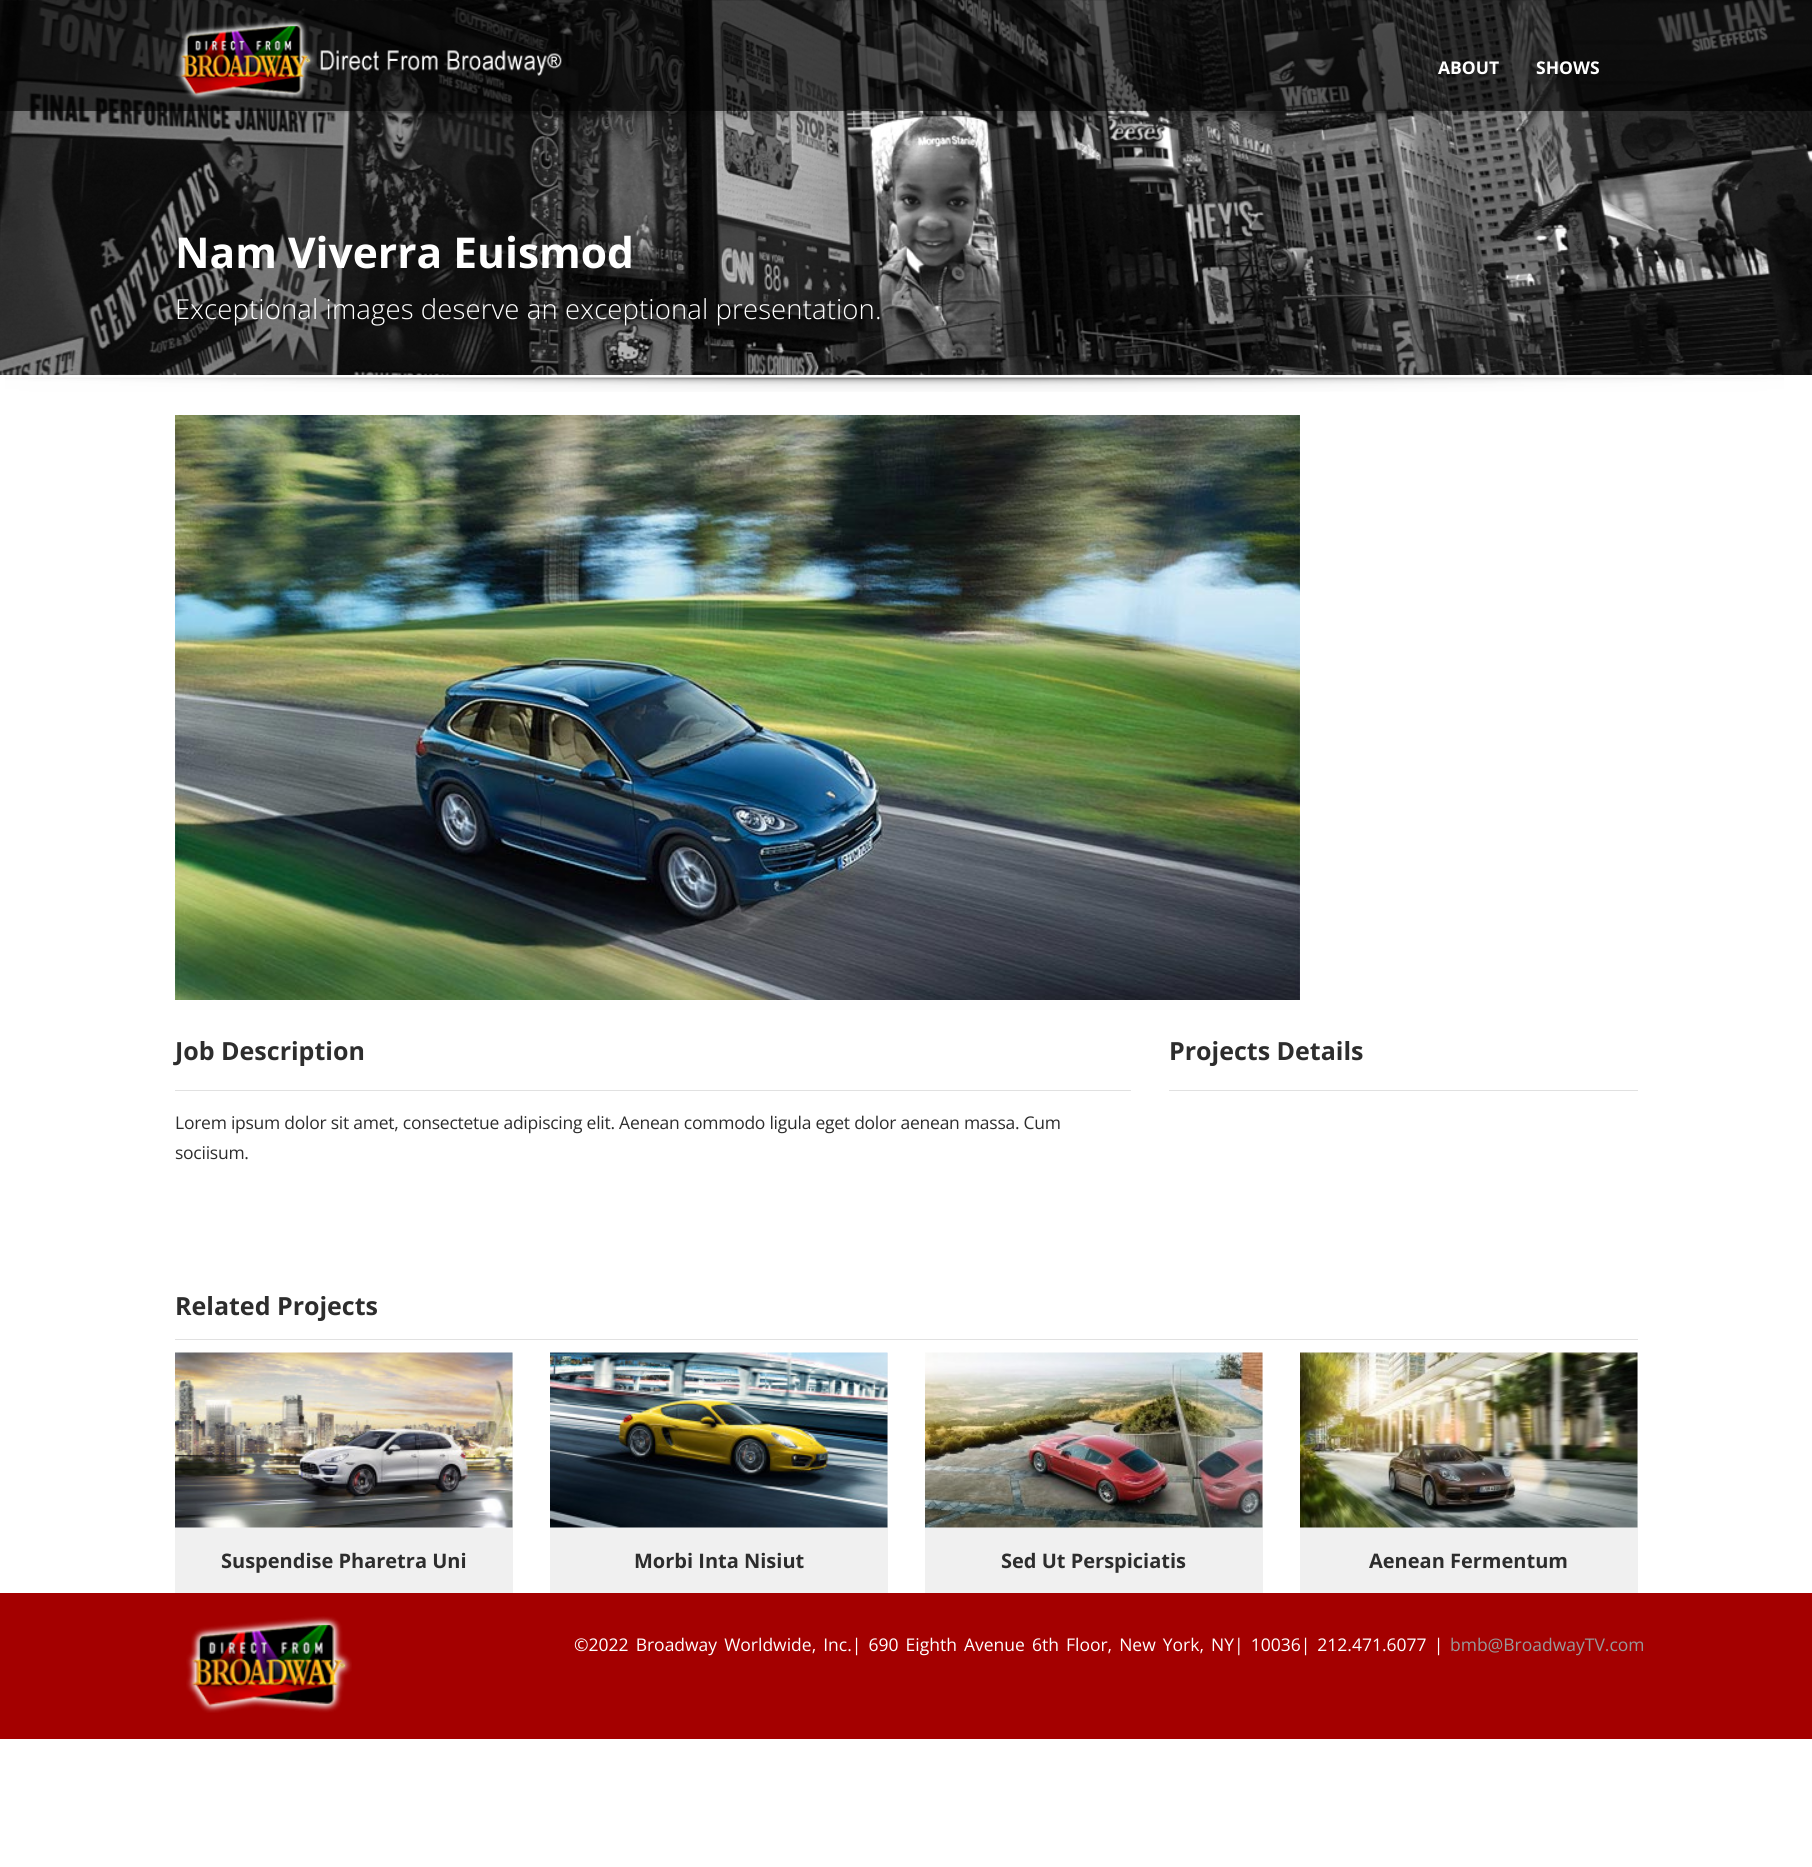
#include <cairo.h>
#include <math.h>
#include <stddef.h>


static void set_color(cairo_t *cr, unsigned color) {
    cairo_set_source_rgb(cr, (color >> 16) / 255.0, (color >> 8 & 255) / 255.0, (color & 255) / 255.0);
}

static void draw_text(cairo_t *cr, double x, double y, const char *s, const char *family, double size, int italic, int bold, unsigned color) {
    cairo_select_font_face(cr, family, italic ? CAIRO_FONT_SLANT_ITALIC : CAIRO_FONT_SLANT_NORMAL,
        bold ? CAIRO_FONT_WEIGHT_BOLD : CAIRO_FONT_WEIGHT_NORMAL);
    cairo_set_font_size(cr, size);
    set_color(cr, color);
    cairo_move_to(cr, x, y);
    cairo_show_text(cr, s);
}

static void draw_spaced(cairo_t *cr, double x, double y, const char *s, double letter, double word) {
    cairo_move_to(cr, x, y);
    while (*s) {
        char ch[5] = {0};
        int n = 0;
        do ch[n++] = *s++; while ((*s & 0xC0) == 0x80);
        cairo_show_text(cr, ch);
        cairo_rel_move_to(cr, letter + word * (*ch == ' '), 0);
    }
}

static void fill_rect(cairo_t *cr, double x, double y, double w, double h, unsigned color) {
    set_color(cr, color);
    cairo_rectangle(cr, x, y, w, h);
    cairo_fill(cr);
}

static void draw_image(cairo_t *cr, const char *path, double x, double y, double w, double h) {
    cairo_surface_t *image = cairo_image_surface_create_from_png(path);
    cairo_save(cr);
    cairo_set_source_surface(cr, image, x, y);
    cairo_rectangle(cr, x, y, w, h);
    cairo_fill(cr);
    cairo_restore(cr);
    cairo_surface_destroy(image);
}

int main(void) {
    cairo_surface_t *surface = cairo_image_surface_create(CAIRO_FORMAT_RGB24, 1812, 1867);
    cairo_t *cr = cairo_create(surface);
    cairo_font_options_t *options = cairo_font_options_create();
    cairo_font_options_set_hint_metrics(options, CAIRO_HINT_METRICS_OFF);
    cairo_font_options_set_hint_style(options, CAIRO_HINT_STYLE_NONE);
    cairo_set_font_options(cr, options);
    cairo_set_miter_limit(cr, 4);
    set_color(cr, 0xFFFFFF);
    cairo_paint(cr);
    draw_image(cr, "assets/img3.png", 0, 0, 1812, 375);
    cairo_set_source_rgba(cr, 0, 0, 0, 0.65);
    cairo_rectangle(cr, 0, 0, 1812, 111);
    cairo_fill(cr);
    draw_image(cr, "assets/img1.png", 176, 19, 386, 81);
    draw_text(cr, 1438, 74, "ABOUT", "Open Sans", 17.5, 0, 1, 0xFFFFFF);
    draw_text(cr, 1536, 74, "SHOWS", "Open Sans", 17.5, 0, 1, 0xFFFFFF);
    draw_image(cr, "assets/img2.png", 311, 111, 1188, 11);
    draw_text(cr, 175, 268, "Nam Viverra Euismod", "Open Sans", 42.5, 0, 1, 0xFFFFFF);
    cairo_select_font_face(cr, "Open Sans Light", CAIRO_FONT_SLANT_NORMAL, CAIRO_FONT_WEIGHT_NORMAL);
    cairo_set_font_size(cr, 27.5);
    draw_spaced(cr, 175, 319, "Exceptional images deserve an exceptional presentation.", 0.12, 0);
    draw_image(cr, "assets/img4.png", 5, 377, 1779, 15);
    draw_image(cr, "assets/img5.png", 175, 415, 1125, 585);
    fill_rect(cr, 175, 1090, 956, 1, 0xE1E1E1);
    draw_text(cr, 175, 1060, "Job Description", "Open Sans", 25, 0, 1, 0x2D2D2D);
    cairo_select_font_face(cr, "Open Sans", CAIRO_FONT_SLANT_NORMAL, CAIRO_FONT_WEIGHT_NORMAL);
    cairo_set_font_size(cr, 17.5);
    draw_spaced(cr, 175, 1129, "Lorem ipsum dolor sit amet, consectetue adipiscing elit. Aenean commodo ligula eget dolor aenean massa. Cum", -0.25, 0);
    draw_spaced(cr, 175, 1159, "sociisum.", -0.25, 0);
    fill_rect(cr, 1169, 1090, 469, 1, 0xE1E1E1);
    draw_text(cr, 1169, 1060, "Projects Details", "Open Sans", 25, 0, 1, 0x2D2D2D);
    fill_rect(cr, 175, 1339, 1463, 1, 0xE1E1E1);
    draw_text(cr, 175, 1315, "Related Projects", "Open Sans", 25, 0, 1, 0x2D2D2D);
    fill_rect(cr, 175, 1353, 338, 240, 0xF0F0F0);
    draw_image(cr, "assets/img6.png", 175, 1352, 338, 176);
    draw_text(cr, 221, 1568, "Suspendise Pharetra Uni", "Open Sans", 20, 0, 1, 0x2D2D2D);
    fill_rect(cr, 550, 1353, 338, 240, 0xF0F0F0);
    draw_image(cr, "assets/img7.png", 550, 1352, 338, 176);
    draw_text(cr, 634, 1568, "Morbi Inta Nisiut", "Open Sans", 20, 0, 1, 0x2D2D2D);
    fill_rect(cr, 925, 1353, 338, 240, 0xF0F0F0);
    draw_image(cr, "assets/img8.png", 925, 1352, 338, 176);
    draw_text(cr, 1001, 1568, "Sed Ut Perspiciatis", "Open Sans", 20, 0, 1, 0x2D2D2D);
    fill_rect(cr, 1300, 1353, 338, 240, 0xF0F0F0);
    draw_image(cr, "assets/img9.png", 1300, 1352, 338, 176);
    draw_text(cr, 1369, 1568, "Aenean Fermentum", "Open Sans", 20, 0, 1, 0x2D2D2D);
    fill_rect(cr, 0, 1593, 1812, 146, 0xA40000);
    draw_image(cr, "assets/img10.png", 186, 1616, 166, 97);
    cairo_select_font_face(cr, "Open Sans", CAIRO_FONT_SLANT_NORMAL, CAIRO_FONT_WEIGHT_NORMAL);
    cairo_set_font_size(cr, 17.5);
    set_color(cr, 0xFFFFFF);
    draw_spaced(cr, 574, 1651, "©2022 Broadway Worldwide, Inc.| 690 Eighth Avenue 6th Floor, New York, NY| 10036| 212.471.6077 |", 0, 2.5);
    draw_text(cr, 1450, 1651, "bmb@BroadwayTV.com", "Open Sans", 17.5, 0, 0, 0x999999);
    cairo_surface_write_to_png(surface, "output.png");
    cairo_font_options_destroy(options);
    cairo_destroy(cr);
    cairo_surface_destroy(surface);
    return 0;
}
